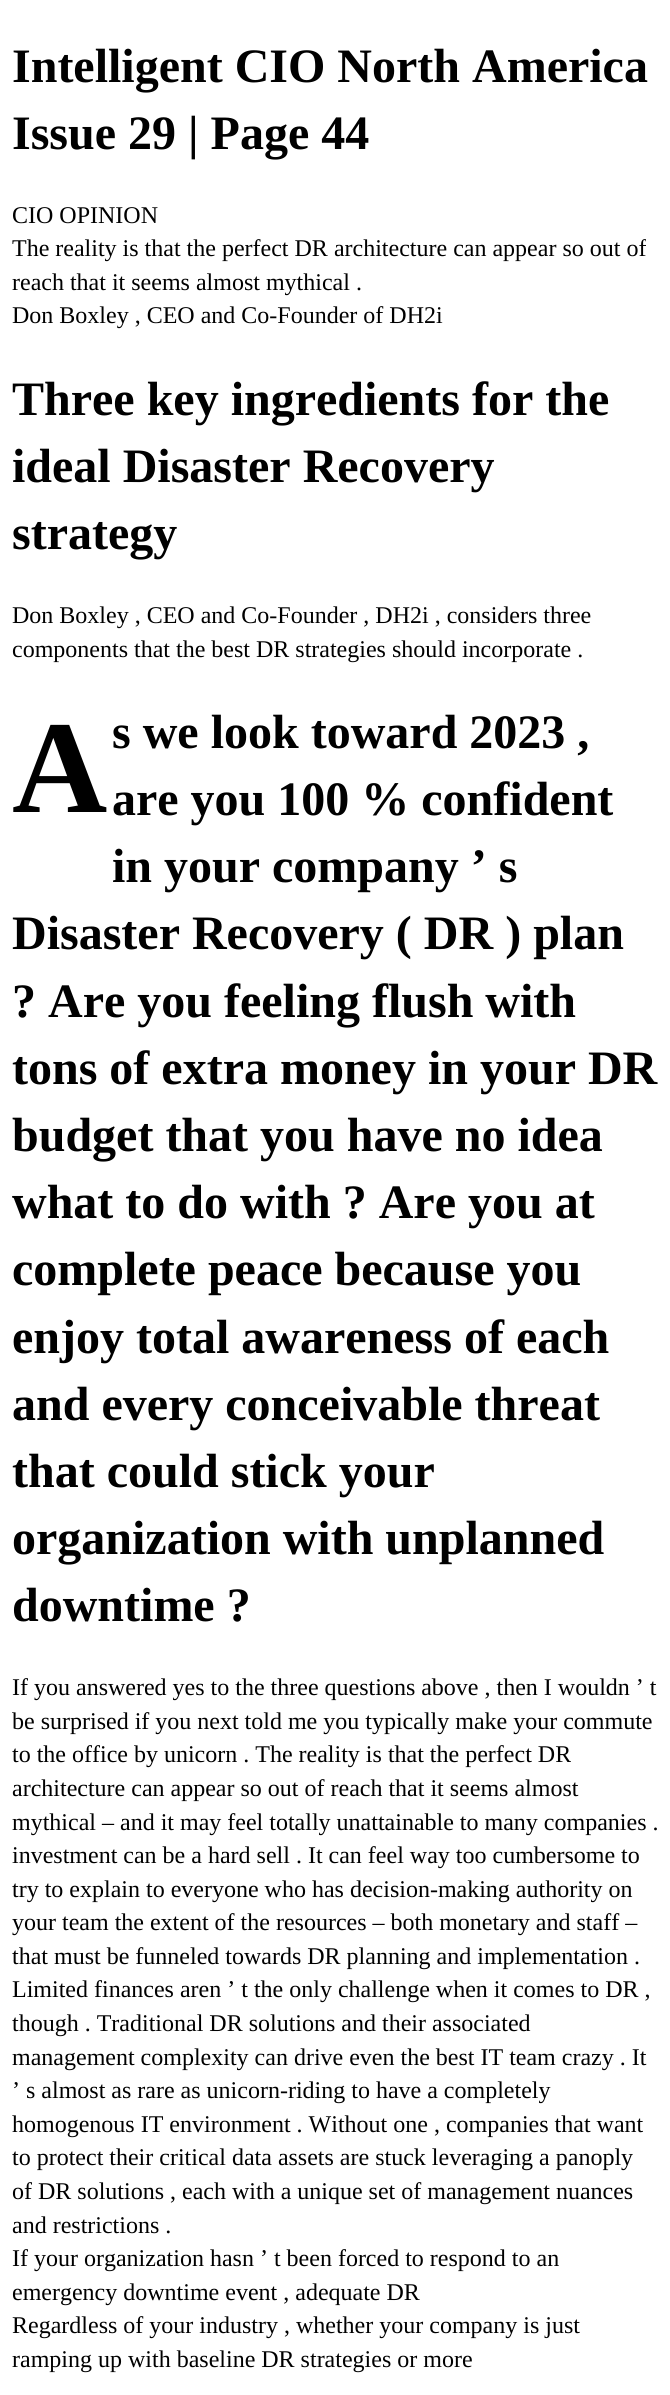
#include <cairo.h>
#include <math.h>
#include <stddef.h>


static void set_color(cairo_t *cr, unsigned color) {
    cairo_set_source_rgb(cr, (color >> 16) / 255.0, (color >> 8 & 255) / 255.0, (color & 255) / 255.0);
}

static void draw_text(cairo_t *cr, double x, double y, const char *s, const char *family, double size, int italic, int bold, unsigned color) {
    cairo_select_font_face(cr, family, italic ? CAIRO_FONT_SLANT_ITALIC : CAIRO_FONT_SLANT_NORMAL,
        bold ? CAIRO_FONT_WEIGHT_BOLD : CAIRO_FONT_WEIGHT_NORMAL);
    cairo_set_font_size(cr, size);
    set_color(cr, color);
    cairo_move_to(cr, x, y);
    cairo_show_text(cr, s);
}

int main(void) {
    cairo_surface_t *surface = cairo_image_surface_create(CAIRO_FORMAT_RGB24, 670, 2395);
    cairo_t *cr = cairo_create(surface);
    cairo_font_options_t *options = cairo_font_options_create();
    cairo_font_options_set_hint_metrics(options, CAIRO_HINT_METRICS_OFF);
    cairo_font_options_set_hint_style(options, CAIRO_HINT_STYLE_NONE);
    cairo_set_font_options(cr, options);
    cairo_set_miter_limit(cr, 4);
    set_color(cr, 0xFFFFFF);
    cairo_paint(cr);
    draw_text(cr, 12, 82, "Intelligent CIO North America", "Liberation Serif", 48, 0, 1, 0x000000);
    draw_text(cr, 12, 149, "Issue 29 | Page 44", "Liberation Serif", 48, 0, 1, 0x000000);
    draw_text(cr, 12, 223, "CIO OPINION", "Liberation Serif", 24, 0, 0, 0x000000);
    draw_text(cr, 12, 256, "The reality is that the perfect DR architecture can appear so out of", "Liberation Serif", 24, 0, 0, 0x000000);
    draw_text(cr, 12, 290, "reach that it seems almost mythical .", "Liberation Serif", 24, 0, 0, 0x000000);
    draw_text(cr, 12, 323, "Don Boxley , CEO and Co-Founder of DH2i", "Liberation Serif", 24, 0, 0, 0x000000);
    draw_text(cr, 12, 415, "Three key ingredients for the", "Liberation Serif", 48, 0, 1, 0x000000);
    draw_text(cr, 12, 482, "ideal Disaster Recovery", "Liberation Serif", 48, 0, 1, 0x000000);
    draw_text(cr, 12, 549, "strategy", "Liberation Serif", 48, 0, 1, 0x000000);
    draw_text(cr, 12, 623, "Don Boxley , CEO and Co-Founder , DH2i , considers three", "Liberation Serif", 24, 0, 0, 0x000000);
    draw_text(cr, 12, 657, "components that the best DR strategies should incorporate .", "Liberation Serif", 24, 0, 0, 0x000000);
    draw_text(cr, 12, 812, "A", "Liberation Serif", 132, 0, 1, 0x000000);
    draw_text(cr, 112, 748, "s we look toward 2023 ,", "Liberation Serif", 48, 0, 1, 0x000000);
    draw_text(cr, 112, 815, "are you 100 % confident", "Liberation Serif", 48, 0, 1, 0x000000);
    draw_text(cr, 112, 882, "in your company ’ s", "Liberation Serif", 48, 0, 1, 0x000000);
    draw_text(cr, 12, 949, "Disaster Recovery ( DR ) plan", "Liberation Serif", 48, 0, 1, 0x000000);
    draw_text(cr, 12, 1017, "? Are you feeling flush with", "Liberation Serif", 48, 0, 1, 0x000000);
    draw_text(cr, 12, 1084, "tons of extra money in your DR", "Liberation Serif", 48, 0, 1, 0x000000);
    draw_text(cr, 12, 1151, "budget that you have no idea", "Liberation Serif", 48, 0, 1, 0x000000);
    draw_text(cr, 12, 1218, "what to do with ? Are you at", "Liberation Serif", 48, 0, 1, 0x000000);
    draw_text(cr, 12, 1285, "complete peace because you", "Liberation Serif", 48, 0, 1, 0x000000);
    draw_text(cr, 12, 1353, "enjoy total awareness of each", "Liberation Serif", 48, 0, 1, 0x000000);
    draw_text(cr, 12, 1420, "and every conceivable threat", "Liberation Serif", 48, 0, 1, 0x000000);
    draw_text(cr, 12, 1487, "that could stick your", "Liberation Serif", 48, 0, 1, 0x000000);
    draw_text(cr, 12, 1554, "organization with unplanned", "Liberation Serif", 48, 0, 1, 0x000000);
    draw_text(cr, 12, 1621, "downtime ?", "Liberation Serif", 48, 0, 1, 0x000000);
    draw_text(cr, 12, 1695, "If you answered yes to the three questions above , then I wouldn ’ t", "Liberation Serif", 24, 0, 0, 0x000000);
    draw_text(cr, 12, 1729, "be surprised if you next told me you typically make your commute", "Liberation Serif", 24, 0, 0, 0x000000);
    draw_text(cr, 12, 1762, "to the office by unicorn . The reality is that the perfect DR", "Liberation Serif", 24, 0, 0, 0x000000);
    draw_text(cr, 12, 1796, "architecture can appear so out of reach that it seems almost", "Liberation Serif", 24, 0, 0, 0x000000);
    draw_text(cr, 12, 1830, "mythical – and it may feel totally unattainable to many companies .", "Liberation Serif", 24, 0, 0, 0x000000);
    draw_text(cr, 12, 1863, "investment can be a hard sell . It can feel way too cumbersome to", "Liberation Serif", 24, 0, 0, 0x000000);
    draw_text(cr, 12, 1897, "try to explain to everyone who has decision-making authority on", "Liberation Serif", 24, 0, 0, 0x000000);
    draw_text(cr, 12, 1930, "your team the extent of the resources – both monetary and staff –", "Liberation Serif", 24, 0, 0, 0x000000);
    draw_text(cr, 12, 1964, "that must be funneled towards DR planning and implementation .", "Liberation Serif", 24, 0, 0, 0x000000);
    draw_text(cr, 12, 1997, "Limited finances aren ’ t the only challenge when it comes to DR ,", "Liberation Serif", 24, 0, 0, 0x000000);
    draw_text(cr, 12, 2031, "though . Traditional DR solutions and their associated", "Liberation Serif", 24, 0, 0, 0x000000);
    draw_text(cr, 12, 2065, "management complexity can drive even the best IT team crazy . It", "Liberation Serif", 24, 0, 0, 0x000000);
    draw_text(cr, 12, 2098, "’ s almost as rare as unicorn-riding to have a completely", "Liberation Serif", 24, 0, 0, 0x000000);
    draw_text(cr, 12, 2132, "homogenous IT environment . Without one , companies that want", "Liberation Serif", 24, 0, 0, 0x000000);
    draw_text(cr, 12, 2165, "to protect their critical data assets are stuck leveraging a panoply", "Liberation Serif", 24, 0, 0, 0x000000);
    draw_text(cr, 12, 2199, "of DR solutions , each with a unique set of management nuances", "Liberation Serif", 24, 0, 0, 0x000000);
    draw_text(cr, 12, 2233, "and restrictions .", "Liberation Serif", 24, 0, 0, 0x000000);
    draw_text(cr, 12, 2266, "If your organization hasn ’ t been forced to respond to an", "Liberation Serif", 24, 0, 0, 0x000000);
    draw_text(cr, 12, 2300, "emergency downtime event , adequate DR", "Liberation Serif", 24, 0, 0, 0x000000);
    draw_text(cr, 12, 2333, "Regardless of your industry , whether your company is just", "Liberation Serif", 24, 0, 0, 0x000000);
    draw_text(cr, 12, 2367, "ramping up with baseline DR strategies or more", "Liberation Serif", 24, 0, 0, 0x000000);
    cairo_surface_write_to_png(surface, "output.png");
    cairo_font_options_destroy(options);
    cairo_destroy(cr);
    cairo_surface_destroy(surface);
    return 0;
}
